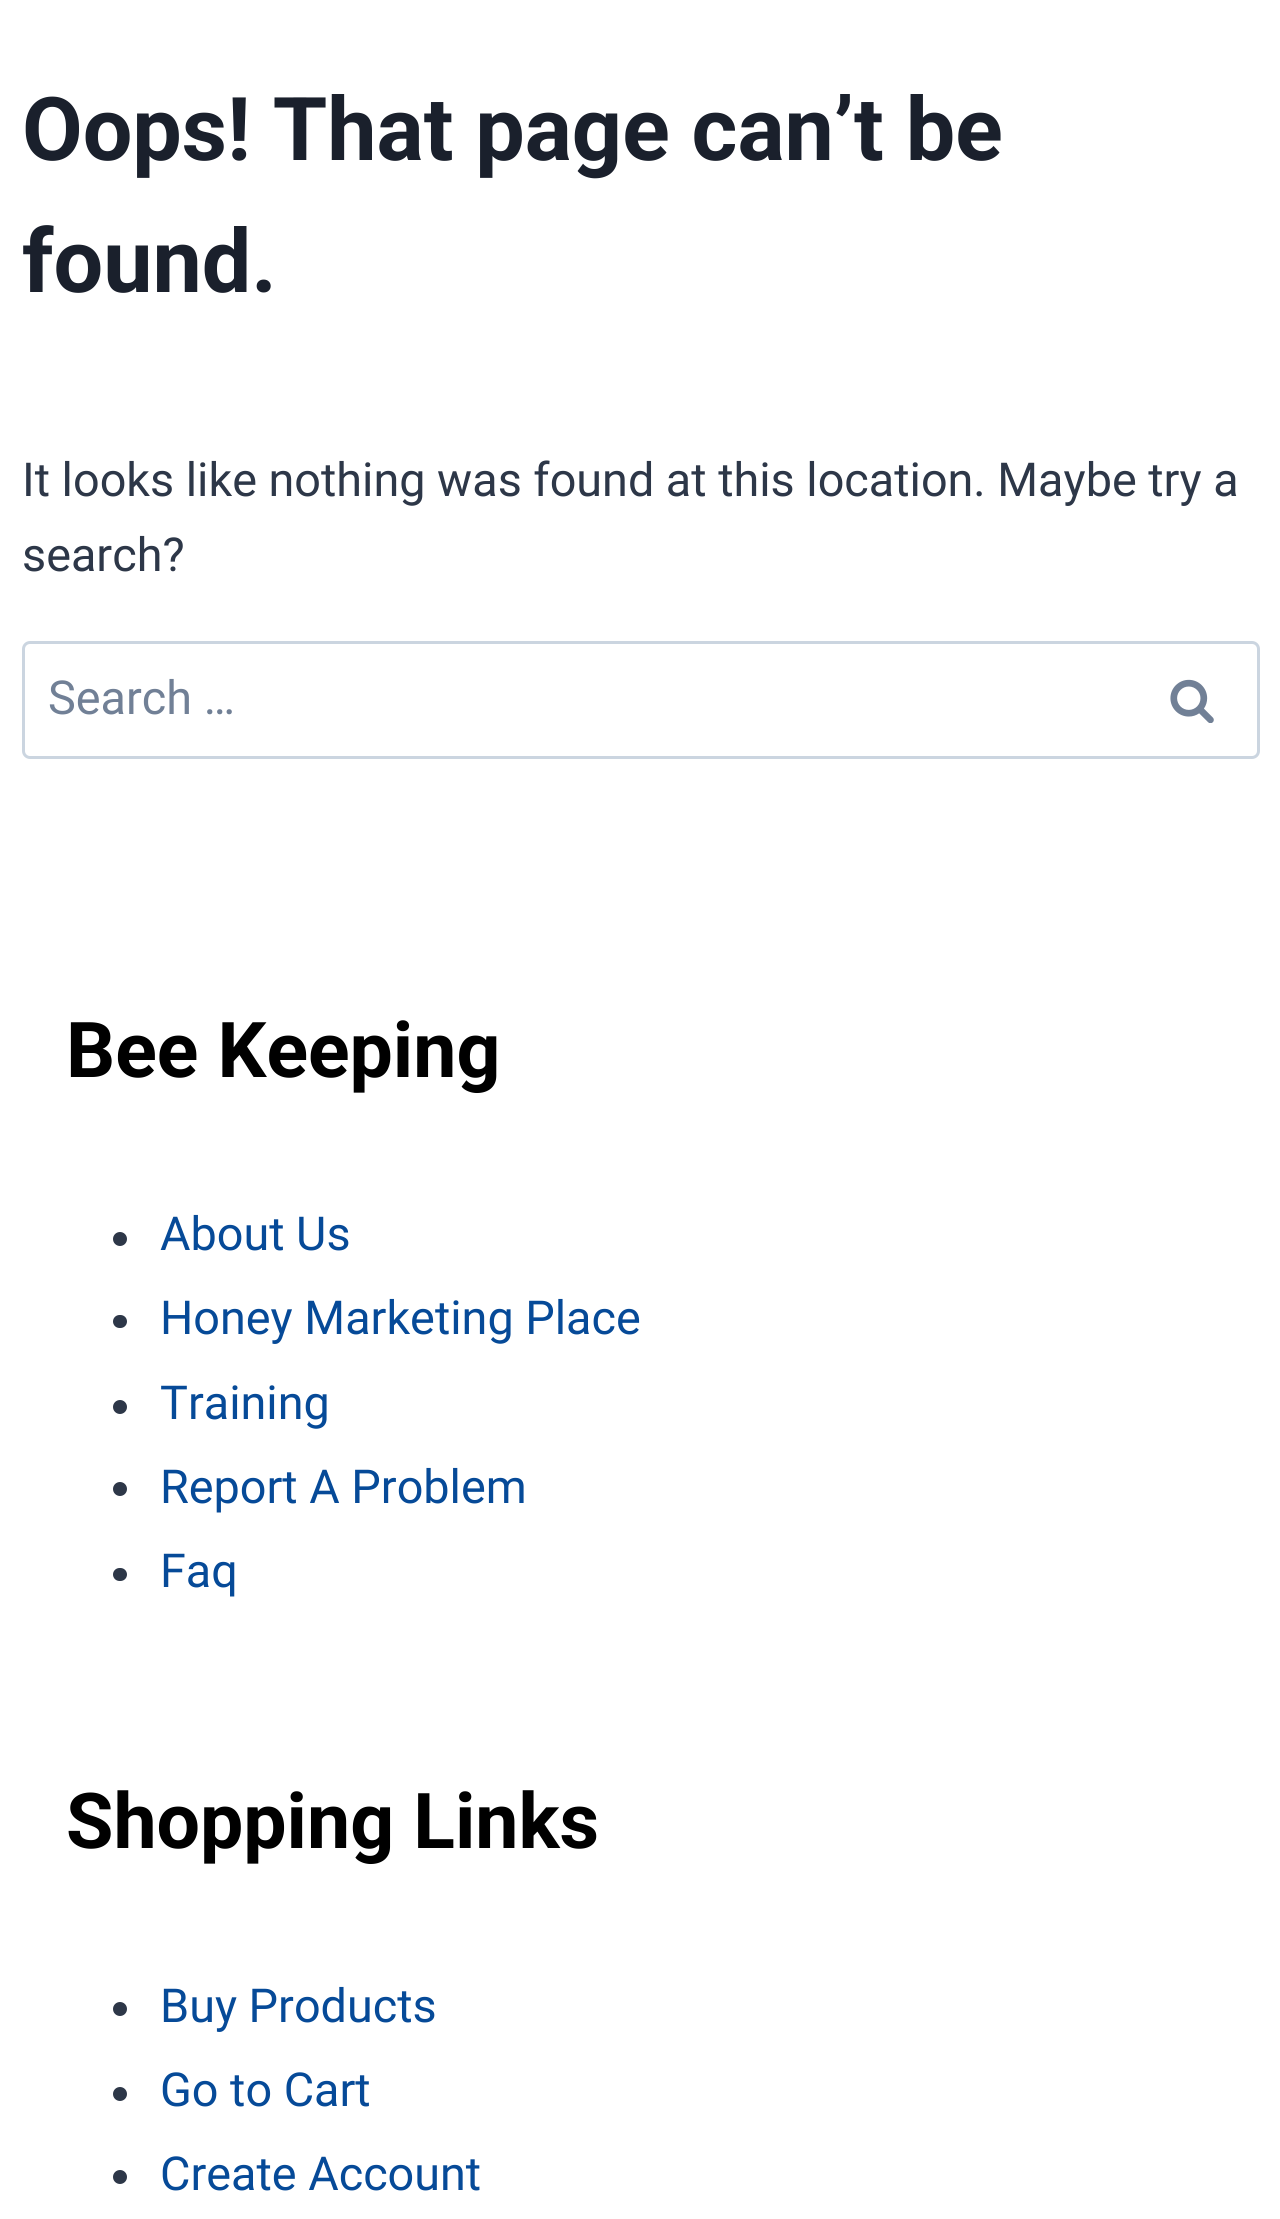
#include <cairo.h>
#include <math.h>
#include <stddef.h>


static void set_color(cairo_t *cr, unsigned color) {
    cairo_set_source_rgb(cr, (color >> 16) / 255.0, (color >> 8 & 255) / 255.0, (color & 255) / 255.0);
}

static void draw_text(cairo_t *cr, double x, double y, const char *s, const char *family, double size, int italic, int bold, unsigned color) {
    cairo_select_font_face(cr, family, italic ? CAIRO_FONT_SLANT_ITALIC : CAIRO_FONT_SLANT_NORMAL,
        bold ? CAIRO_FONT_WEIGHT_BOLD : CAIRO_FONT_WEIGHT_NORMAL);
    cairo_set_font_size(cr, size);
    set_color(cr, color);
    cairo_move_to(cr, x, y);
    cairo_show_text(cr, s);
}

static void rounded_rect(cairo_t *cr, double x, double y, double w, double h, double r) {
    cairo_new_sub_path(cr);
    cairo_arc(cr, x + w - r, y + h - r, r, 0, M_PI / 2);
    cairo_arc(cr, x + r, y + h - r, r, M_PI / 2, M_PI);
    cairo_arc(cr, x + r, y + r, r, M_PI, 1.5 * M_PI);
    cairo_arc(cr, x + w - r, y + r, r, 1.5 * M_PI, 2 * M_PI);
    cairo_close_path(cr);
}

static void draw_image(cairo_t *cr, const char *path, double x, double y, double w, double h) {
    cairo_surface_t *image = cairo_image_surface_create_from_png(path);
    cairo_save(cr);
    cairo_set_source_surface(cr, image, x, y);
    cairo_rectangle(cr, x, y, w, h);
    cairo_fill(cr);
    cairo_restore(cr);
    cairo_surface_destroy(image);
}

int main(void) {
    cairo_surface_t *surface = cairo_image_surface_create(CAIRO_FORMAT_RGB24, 1280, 2219);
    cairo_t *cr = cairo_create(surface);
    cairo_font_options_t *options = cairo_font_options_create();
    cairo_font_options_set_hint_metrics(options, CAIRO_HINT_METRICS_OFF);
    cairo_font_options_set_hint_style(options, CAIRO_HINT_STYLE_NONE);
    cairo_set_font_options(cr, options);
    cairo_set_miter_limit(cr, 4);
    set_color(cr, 0xFFFFFF);
    cairo_paint(cr);
    draw_text(cr, 22, 160, "Oops! That page can’t be", "Roboto", 88, 0, 1, 0x1A202C);
    draw_text(cr, 22, 292, "found.", "Roboto", 88, 0, 1, 0x1A202C);
    draw_text(cr, 22, 496, "It looks like nothing was found at this location. Maybe try a", "Roboto", 46.75, 0, 0, 0x2D3748);
    draw_text(cr, 22, 571, "search?", "Roboto", 46.75, 0, 0, 0x2D3748);
    rounded_rect(cr, 23.5, 642.5, 1235, 115, 6.5);
    set_color(cr, 0xCBD5E0);
    cairo_set_line_width(cr, 3);
    cairo_stroke(cr);
    draw_text(cr, 48, 714, "Search …", "Roboto", 46.75, 0, 0, 0x718096);
    draw_image(cr, "assets/img1.png", 1170, 679, 44, 44);
    draw_text(cr, 66, 1077, "Bee Keeping", "Roboto", 77, 0, 1, 0x000000);
    set_color(cr, 0x2D3748);
    cairo_new_path(cr);
    cairo_arc(cr, 120, 1239, 7, 0, 2 * M_PI);
    cairo_fill(cr);
    draw_text(cr, 160, 1250, "About Us", "Roboto", 46.75, 0, 0, 0x064A98);
    set_color(cr, 0x2D3748);
    rounded_rect(cr, 113, 1315, 14, 13, 6.5);
    cairo_fill(cr);
    draw_text(cr, 160, 1334, "Honey Marketing Place", "Roboto", 46.75, 0, 0, 0x064A98);
    set_color(cr, 0x2D3748);
    cairo_new_path(cr);
    cairo_arc(cr, 120, 1407, 7, 0, 2 * M_PI);
    cairo_fill(cr);
    draw_text(cr, 160, 1419, "Training", "Roboto", 46.75, 0, 0, 0x064A98);
    set_color(cr, 0x2D3748);
    cairo_new_path(cr);
    cairo_arc(cr, 120, 1489, 7, 0, 2 * M_PI);
    cairo_fill(cr);
    draw_text(cr, 160, 1503, "Report A Problem", "Roboto", 46.75, 0, 0, 0x064A98);
    set_color(cr, 0x2D3748);
    rounded_rect(cr, 113, 1568, 14, 13, 6.5);
    cairo_fill(cr);
    draw_text(cr, 160, 1587, "Faq", "Roboto", 46.75, 0, 0, 0x064A98);
    draw_text(cr, 66, 1848, "Shopping Links", "Roboto", 77, 0, 1, 0x000000);
    set_color(cr, 0x2D3748);
    cairo_new_path(cr);
    cairo_arc(cr, 120, 2009, 7, 0, 2 * M_PI);
    cairo_fill(cr);
    draw_text(cr, 160, 2022, "Buy Products", "Roboto", 46.75, 0, 0, 0x064A98);
    set_color(cr, 0x2D3748);
    cairo_new_path(cr);
    cairo_arc(cr, 120, 2094, 7, 0, 2 * M_PI);
    cairo_fill(cr);
    draw_text(cr, 160, 2106, "Go to Cart", "Roboto", 46.75, 0, 0, 0x064A98);
    set_color(cr, 0x2D3748);
    cairo_new_path(cr);
    cairo_arc(cr, 120, 2177, 7, 0, 2 * M_PI);
    cairo_fill(cr);
    draw_text(cr, 160, 2190, "Create Account", "Roboto", 46.75, 0, 0, 0x064A98);
    cairo_surface_write_to_png(surface, "output.png");
    cairo_font_options_destroy(options);
    cairo_destroy(cr);
    cairo_surface_destroy(surface);
    return 0;
}
